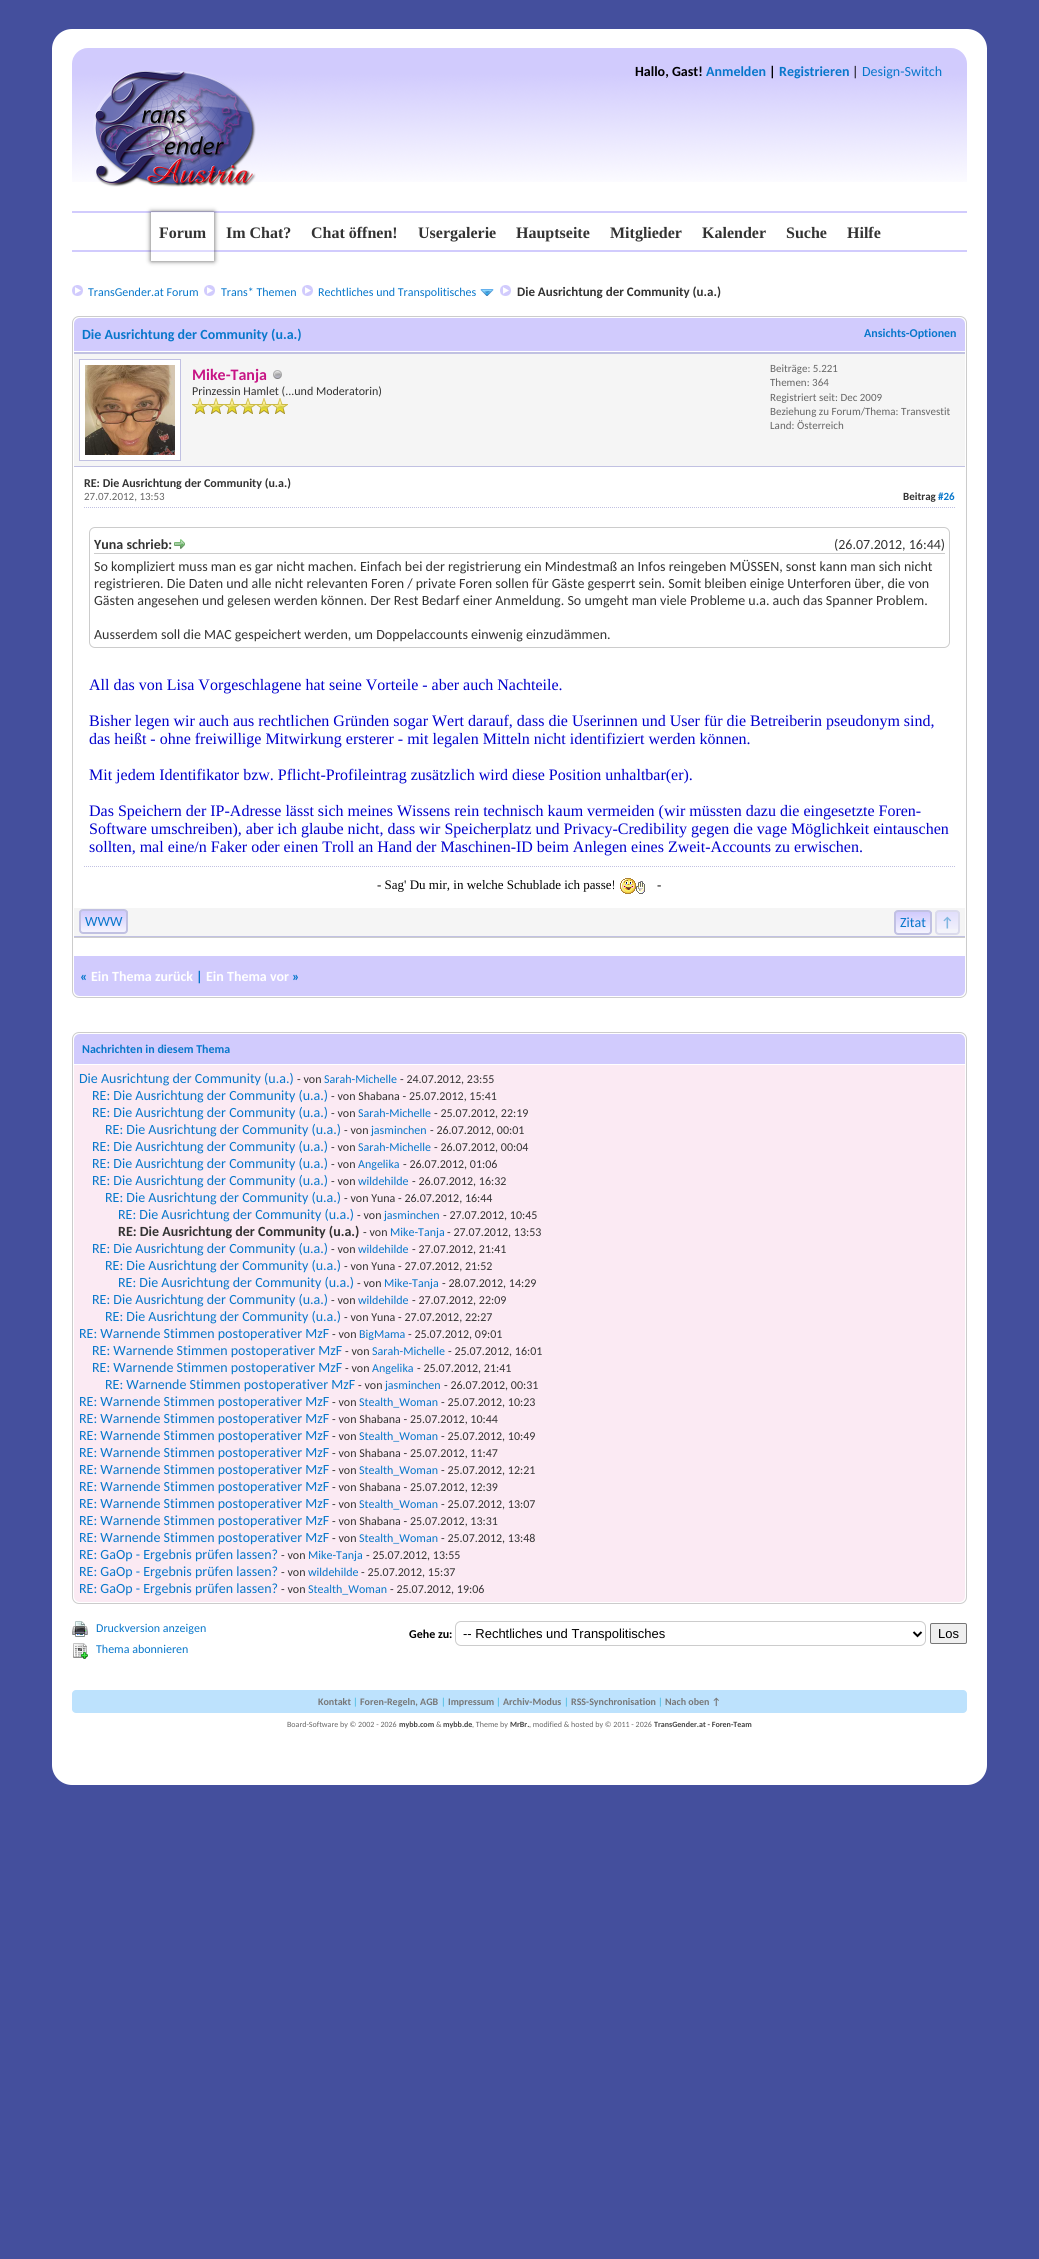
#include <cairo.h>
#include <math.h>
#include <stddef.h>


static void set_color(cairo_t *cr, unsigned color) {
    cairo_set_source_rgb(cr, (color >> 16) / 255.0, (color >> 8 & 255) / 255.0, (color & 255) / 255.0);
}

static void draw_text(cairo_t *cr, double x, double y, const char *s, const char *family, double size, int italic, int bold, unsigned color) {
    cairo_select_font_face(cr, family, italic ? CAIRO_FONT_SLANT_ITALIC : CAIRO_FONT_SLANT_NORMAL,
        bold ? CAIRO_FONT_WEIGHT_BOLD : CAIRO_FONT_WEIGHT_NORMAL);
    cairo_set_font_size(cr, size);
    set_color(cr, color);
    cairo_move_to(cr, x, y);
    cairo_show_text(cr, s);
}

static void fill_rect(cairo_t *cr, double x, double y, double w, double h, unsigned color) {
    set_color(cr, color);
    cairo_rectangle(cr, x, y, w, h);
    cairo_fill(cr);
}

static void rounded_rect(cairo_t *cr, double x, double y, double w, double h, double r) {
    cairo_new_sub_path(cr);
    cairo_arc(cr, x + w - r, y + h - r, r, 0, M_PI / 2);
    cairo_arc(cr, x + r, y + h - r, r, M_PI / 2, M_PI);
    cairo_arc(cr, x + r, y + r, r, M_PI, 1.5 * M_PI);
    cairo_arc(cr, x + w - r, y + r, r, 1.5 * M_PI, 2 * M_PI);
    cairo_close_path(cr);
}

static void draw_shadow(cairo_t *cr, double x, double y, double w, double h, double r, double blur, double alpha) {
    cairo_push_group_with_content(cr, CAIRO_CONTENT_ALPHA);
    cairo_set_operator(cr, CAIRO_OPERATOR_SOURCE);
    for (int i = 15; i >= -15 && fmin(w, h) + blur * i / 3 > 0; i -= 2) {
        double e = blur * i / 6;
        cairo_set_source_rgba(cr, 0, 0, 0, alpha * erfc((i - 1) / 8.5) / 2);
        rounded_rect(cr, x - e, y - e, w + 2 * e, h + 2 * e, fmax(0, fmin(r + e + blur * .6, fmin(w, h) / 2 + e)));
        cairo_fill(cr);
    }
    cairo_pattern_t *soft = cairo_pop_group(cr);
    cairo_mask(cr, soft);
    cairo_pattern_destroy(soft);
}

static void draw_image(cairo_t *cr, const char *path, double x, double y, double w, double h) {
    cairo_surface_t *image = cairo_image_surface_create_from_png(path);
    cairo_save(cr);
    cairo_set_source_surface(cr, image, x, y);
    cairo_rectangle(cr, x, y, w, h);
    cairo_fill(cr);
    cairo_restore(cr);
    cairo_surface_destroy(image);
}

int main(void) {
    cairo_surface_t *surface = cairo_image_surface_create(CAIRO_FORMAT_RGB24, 1039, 2259);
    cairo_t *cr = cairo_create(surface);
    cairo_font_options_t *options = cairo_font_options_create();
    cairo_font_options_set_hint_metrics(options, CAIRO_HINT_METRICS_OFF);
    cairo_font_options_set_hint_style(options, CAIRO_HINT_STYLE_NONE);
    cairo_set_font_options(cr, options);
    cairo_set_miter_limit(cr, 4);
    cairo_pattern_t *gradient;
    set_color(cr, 0x444F9D);
    cairo_paint(cr);
    set_color(cr, 0xFFFFFF);
    cairo_new_path(cr);
    cairo_move_to(cr, 72, 29);
    cairo_line_to(cr, 967, 29);
    cairo_curve_to(cr, 978, 29, 987, 38, 987, 49);
    cairo_line_to(cr, 52, 49);
    cairo_curve_to(cr, 52, 38, 61, 29, 72, 29);
    cairo_close_path(cr);
    cairo_fill(cr);
    fill_rect(cr, 52, 48, 935, 1692, 0xFFFFFF);
    draw_image(cr, "assets/img1.png", 72, 48, 895, 134);
    draw_image(cr, "assets/img2.png", 93, 70, 163, 117);
    draw_text(cr, 635, 76, "Hallo, Gast!", "Carlito", 14, 0, 1, 0x000000);
    draw_text(cr, 706, 76, "Anmelden", "Carlito", 14, 0, 1, 0x0877CB);
    draw_text(cr, 769, 76, "|", "Carlito", 14, 0, 1, 0x000000);
    draw_text(cr, 779, 76, "Registrieren", "Carlito", 14, 0, 1, 0x0877CB);
    draw_text(cr, 852, 76, "|", "Carlito", 14, 0, 0, 0x000000);
    draw_text(cr, 862, 76, "Design-Switch", "Carlito", 14, 0, 0, 0x0877CB);
    fill_rect(cr, 72, 211, 895, 2, 0xD1CBFD);
    fill_rect(cr, 72, 250, 895, 2, 0xD1CBFD);
    cairo_save(cr);
    cairo_set_fill_rule(cr, CAIRO_FILL_RULE_EVEN_ODD);
    cairo_new_path(cr);
    cairo_move_to(cr, 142, 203);
    cairo_line_to(cr, 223, 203);
    cairo_line_to(cr, 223, 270);
    cairo_line_to(cr, 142, 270);
    cairo_close_path(cr);
    cairo_move_to(cr, 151, 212);
    cairo_line_to(cr, 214, 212);
    cairo_line_to(cr, 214, 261);
    cairo_line_to(cr, 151, 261);
    cairo_close_path(cr);
    cairo_clip(cr);
    set_color(cr, 0x595959);
    draw_shadow(cr, 151, 212, 63, 49, 0, 2.5, 1);
    cairo_restore(cr);
    gradient = cairo_pattern_create_linear(183, 212, 183, 261);
    cairo_pattern_add_color_stop_rgba(gradient, 0, 1, 1, 1, 0.82);
    cairo_pattern_add_color_stop_rgba(gradient, 1, 1, 1, 1, 0.16);
    cairo_set_source(cr, gradient);
    cairo_pattern_destroy(gradient);
    cairo_rectangle(cr, 151, 212, 63, 40);
    cairo_fill(cr);
    draw_text(cr, 159, 238, "Forum", "Liberation Serif", 16, 0, 1, 0x333333);
    draw_text(cr, 226, 238, "Im Chat?", "Liberation Serif", 16, 0, 1, 0x333333);
    draw_text(cr, 311, 238, "Chat öffnen!", "Liberation Serif", 16, 0, 1, 0x333333);
    draw_text(cr, 418, 238, "Usergalerie", "Liberation Serif", 16, 0, 1, 0x333333);
    draw_text(cr, 516, 238, "Hauptseite", "Liberation Serif", 16, 0, 1, 0x333333);
    draw_text(cr, 610, 238, "Mitglieder", "Liberation Serif", 16, 0, 1, 0x333333);
    draw_text(cr, 702, 238, "Kalender", "Liberation Serif", 16, 0, 1, 0x333333);
    draw_text(cr, 786, 238, "Suche", "Liberation Serif", 16, 0, 1, 0x333333);
    draw_text(cr, 847, 238, "Hilfe", "Liberation Serif", 16, 0, 1, 0x333333);
    draw_image(cr, "assets/img3.png", 72, 285, 11, 11);
    draw_text(cr, 88, 296, "TransGender.at Forum", "Carlito", 12, 0, 0, 0x0877CB);
    draw_image(cr, "assets/img3.png", 204, 285, 11, 11);
    draw_text(cr, 221, 296, "Trans* Themen", "Carlito", 12, 0, 0, 0x0877CB);
    draw_image(cr, "assets/img3.png", 302, 285, 11, 11);
    draw_text(cr, 318, 296, "Rechtliches und Transpolitisches", "Carlito", 12, 0, 0, 0x0877CB);
    draw_image(cr, "assets/img4.png", 480, 289, 14, 7);
    draw_image(cr, "assets/img3.png", 500, 285, 11, 11);
    draw_text(cr, 517, 296, "Die Ausrichtung der Community (u.a.)", "Carlito", 13, 0, 1, 0x333333);
    rounded_rect(cr, 72.5, 316.5, 894, 681, 6.5);
    set_color(cr, 0xCCCCCC);
    cairo_set_line_width(cr, 1);
    cairo_stroke(cr);
    set_color(cr, 0xD1CBFD);
    cairo_new_path(cr);
    cairo_move_to(cr, 80, 318);
    cairo_line_to(cr, 959, 318);
    cairo_curve_to(cr, 962.5, 318, 965, 320.5, 965, 324);
    cairo_line_to(cr, 965, 351);
    cairo_line_to(cr, 74, 351);
    cairo_line_to(cr, 74, 324);
    cairo_curve_to(cr, 74, 320.5, 76.5, 318, 80, 318);
    cairo_close_path(cr);
    cairo_fill(cr);
    draw_text(cr, 82, 339, "Die Ausrichtung der Community (u.a.)", "Carlito", 14, 0, 1, 0x0877CB);
    draw_text(cr, 864, 337, "Ansichts-Optionen", "Carlito", 12, 0, 1, 0x0877CB);
    fill_rect(cr, 74, 937, 891, 1, 0xCCCCCC);
    fill_rect(cr, 74, 354, 891, 112, 0xF5F5F5);
    fill_rect(cr, 74, 352, 891, 2, 0xC1C1E2);
    fill_rect(cr, 74, 466, 891, 1, 0xC1C1E2);
    set_color(cr, 0xFFFFFF);
    cairo_rectangle(cr, 79.5, 359.5, 101, 101);
    cairo_fill_preserve(cr);
    set_color(cr, 0xC1C1E2);
    cairo_stroke(cr);
    draw_image(cr, "assets/img5.png", 85, 365, 90, 90);
    draw_text(cr, 192, 380, "Mike-Tanja", "Carlito", 16, 0, 1, 0xC71585);
    draw_image(cr, "assets/img6.png", 273, 370, 9, 9);
    draw_text(cr, 192, 395, "Prinzessin Hamlet (...und Moderatorin)", "Carlito", 12, 0, 0, 0x333333);
    draw_image(cr, "assets/img7.png", 192, 398, 16, 16);
    draw_image(cr, "assets/img7.png", 208, 398, 16, 16);
    draw_image(cr, "assets/img7.png", 224, 398, 16, 16);
    draw_image(cr, "assets/img7.png", 240, 398, 16, 16);
    draw_image(cr, "assets/img7.png", 256, 398, 16, 16);
    draw_image(cr, "assets/img7.png", 272, 398, 16, 16);
    draw_text(cr, 770, 372, "Beiträge: 5.221", "Carlito", 11, 0, 0, 0x666666);
    draw_text(cr, 770, 386, "Themen: 364", "Carlito", 11, 0, 0, 0x666666);
    draw_text(cr, 770, 401, "Registriert seit: Dec 2009", "Carlito", 11, 0, 0, 0x666666);
    draw_text(cr, 770, 415, "Beziehung zu Forum/Thema: Transvestit", "Carlito", 11, 0, 0, 0x666666);
    draw_text(cr, 770, 429, "Land: Österreich", "Carlito", 11, 0, 0, 0x666666);
    draw_text(cr, 84, 487, "RE: Die Ausrichtung der Community (u.a.)", "Carlito", 12, 0, 1, 0x333333);
    cairo_new_path(cr);
    cairo_move_to(cr, 84, 507.5);
    cairo_line_to(cr, 955, 507.5);
    set_color(cr, 0xC1C1E2);
    cairo_set_dash(cr, (double[]){1, 1}, 2, 0);
    cairo_stroke(cr);
    draw_text(cr, 84, 500, "27.07.2012, 13:53", "Carlito", 11, 0, 0, 0x666666);
    draw_text(cr, 903, 500, "Beitrag", "Carlito", 11, 0, 1, 0x333333);
    draw_text(cr, 938, 500, "#26", "Carlito", 11, 0, 1, 0x0877CB);
    rounded_rect(cr, 89.5, 527.5, 860, 120, 5.5);
    set_color(cr, 0xCCCCCC);
    cairo_set_dash(cr, NULL, 0, 0);
    cairo_stroke(cr);
    fill_rect(cr, 94, 553, 851, 1, 0xCCCCCC);
    draw_text(cr, 94, 549, "Yuna schrieb:", "Carlito", 14, 0, 1, 0x333333);
    draw_image(cr, "assets/img8.png", 174, 539, 11, 10);
    draw_text(cr, 834, 549, "(26.07.2012, 16:44)", "Carlito", 14, 0, 0, 0x333333);
    draw_text(cr, 94, 571, "So kompliziert muss man es gar nicht machen. Einfach bei der registrierung ein Mindestmaß an Infos reingeben MÜSSEN, sonst kann man sich nicht", "Carlito", 14, 0, 0, 0x333333);
    draw_text(cr, 94, 588, "registrieren. Die Daten und alle nicht relevanten Foren / private Foren sollen für Gäste gesperrt sein. Somit bleiben einige Unterforen über, die von", "Carlito", 14, 0, 0, 0x333333);
    draw_text(cr, 94, 605, "Gästen angesehen und gelesen werden können. Der Rest Bedarf einer Anmeldung. So umgeht man viele Probleme u.a. auch das Spanner Problem.", "Carlito", 14, 0, 0, 0x333333);
    draw_text(cr, 94, 639, "Ausserdem soll die MAC gespeichert werden, um Doppelaccounts einwenig einzudämmen.", "Carlito", 14, 0, 0, 0x333333);
    draw_text(cr, 89, 690, "All das von Lisa Vorgeschlagene hat seine Vorteile - aber auch Nachteile.", "Liberation Serif", 16, 0, 0, 0x0000CD);
    draw_text(cr, 89, 726, "Bisher legen wir auch aus rechtlichen Gründen sogar Wert darauf, dass die Userinnen und User für die Betreiberin pseudonym sind,", "Liberation Serif", 16, 0, 0, 0x0000CD);
    draw_text(cr, 89, 744, "das heißt - ohne freiwillige Mitwirkung ersterer - mit legalen Mitteln nicht identifiziert werden können.", "Liberation Serif", 16, 0, 0, 0x0000CD);
    draw_text(cr, 89, 780, "Mit jedem Identifikator bzw. Pflicht-Profileintrag zusätzlich wird diese Position unhaltbar(er).", "Liberation Serif", 16, 0, 0, 0x0000CD);
    draw_text(cr, 89, 816, "Das Speichern der IP-Adresse lässt sich meines Wissens rein technisch kaum vermeiden (wir müssten dazu die eingesetzte Foren-", "Liberation Serif", 16, 0, 0, 0x0000CD);
    draw_text(cr, 89, 834, "Software umschreiben), aber ich glaube nicht, dass wir Speicherplatz und Privacy-Credibility gegen die vage Möglichkeit eintauschen", "Liberation Serif", 16, 0, 0, 0x0000CD);
    draw_text(cr, 89, 852, "sollten, mal eine/n Faker oder einen Troll an Hand der Maschinen-ID beim Anlegen eines Zweit-Accounts zu erwischen.", "Liberation Serif", 16, 0, 0, 0x0000CD);
    cairo_new_path(cr);
    cairo_move_to(cr, 84, 866.5);
    cairo_line_to(cr, 955, 866.5);
    set_color(cr, 0xC1C1E2);
    cairo_set_dash(cr, (double[]){1, 1}, 2, 0);
    cairo_stroke(cr);
    draw_text(cr, 377, 889, "- Sag' Du mir, in welche Schublade ich passe!", "Liberation Serif", 13, 0, 0, 0x000000);
    draw_image(cr, "assets/img9.png", 620, 878, 25, 16);
    draw_text(cr, 657, 889, "-", "Liberation Serif", 13, 0, 0, 0x000000);
    fill_rect(cr, 74, 908, 891, 28, 0xF5F5F5);
    fill_rect(cr, 74, 936, 891, 1, 0xC1C1E2);
    draw_image(cr, "assets/img10.png", 79, 911, 49, 23);
    rounded_rect(cr, 80, 910, 47, 23, 3);
    cairo_set_line_width(cr, 2);
    cairo_set_dash(cr, NULL, 0, 0);
    cairo_stroke(cr);
    draw_text(cr, 85, 926, "WWW", "Carlito", 14, 0, 0, 0x0877CB);
    draw_image(cr, "assets/img11.png", 894, 912, 38, 23);
    set_color(cr, 0xF3F3FA);
    rounded_rect(cr, 935, 910, 25, 25, 4);
    cairo_fill(cr);
    draw_image(cr, "assets/img12.png", 935, 912, 25, 17);
    rounded_rect(cr, 895, 911, 36, 23, 3);
    set_color(cr, 0xC1C1E2);
    cairo_stroke(cr);
    draw_text(cr, 900, 927, "Zitat", "Carlito", 14, 0, 0, 0x0877CB);
    rounded_rect(cr, 936, 911, 23, 23, 3);
    set_color(cr, 0xDBDBEC);
    cairo_stroke(cr);
    draw_text(cr, 941, 927, "↑", "Carlito", 14, 0, 1, 0x7FB6E0);
    set_color(cr, 0xD1CBFD);
    cairo_new_path(cr);
    cairo_move_to(cr, 74, 956);
    cairo_line_to(cr, 965, 956);
    cairo_line_to(cr, 965, 990);
    cairo_curve_to(cr, 965, 993.5, 962.5, 996, 959, 996);
    cairo_line_to(cr, 80, 996);
    cairo_curve_to(cr, 76.5, 996, 74, 993.5, 74, 990);
    cairo_close_path(cr);
    cairo_fill(cr);
    draw_text(cr, 80, 981, "«", "Carlito", 14, 0, 1, 0x0877CB);
    draw_text(cr, 91, 981, "Ein Thema zurück", "Carlito", 14, 0, 1, 0xFFFFFF);
    draw_text(cr, 196, 981, "|", "Carlito", 14, 0, 1, 0x0877CB);
    draw_text(cr, 206, 981, "Ein Thema vor", "Carlito", 14, 0, 1, 0xFFFFFF);
    draw_text(cr, 292, 981, "»", "Carlito", 14, 0, 1, 0x0877CB);
    rounded_rect(cr, 72.5, 1032.5, 894, 571, 6.5);
    set_color(cr, 0xCCCCCC);
    cairo_set_line_width(cr, 1);
    cairo_stroke(cr);
    set_color(cr, 0xD1CBFD);
    cairo_new_path(cr);
    cairo_move_to(cr, 80, 1034);
    cairo_line_to(cr, 959, 1034);
    cairo_curve_to(cr, 962.5, 1034, 965, 1036.5, 965, 1040);
    cairo_line_to(cr, 965, 1064);
    cairo_line_to(cr, 74, 1064);
    cairo_line_to(cr, 74, 1040);
    cairo_curve_to(cr, 74, 1036.5, 76.5, 1034, 80, 1034);
    cairo_close_path(cr);
    cairo_fill(cr);
    draw_text(cr, 82, 1053, "Nachrichten in diesem Thema", "Carlito", 12, 0, 1, 0x0877CB);
    set_color(cr, 0xFBEAF3);
    cairo_new_path(cr);
    cairo_move_to(cr, 74, 1065);
    cairo_line_to(cr, 965, 1065);
    cairo_line_to(cr, 965, 1596);
    cairo_curve_to(cr, 965, 1599.5, 962.5, 1602, 959, 1602);
    cairo_line_to(cr, 80, 1602);
    cairo_curve_to(cr, 76.5, 1602, 74, 1599.5, 74, 1596);
    cairo_close_path(cr);
    cairo_fill(cr);
    draw_text(cr, 79, 1083, "Die Ausrichtung der Community (u.a.)", "Carlito", 14, 0, 0, 0x0877CB);
    draw_text(cr, 297, 1083, "- von", "Carlito", 12, 0, 0, 0x333333);
    draw_text(cr, 324, 1083, "Sarah-Michelle", "Carlito", 12, 0, 0, 0x0877CB);
    draw_text(cr, 400, 1083, "- 24.07.2012, 23:55", "Carlito", 12, 0, 0, 0x333333);
    draw_text(cr, 92, 1100, "RE: Die Ausrichtung der Community (u.a.)", "Carlito", 14, 0, 0, 0x0877CB);
    draw_text(cr, 331, 1100, "- von Shabana - 25.07.2012, 15:41", "Carlito", 12, 0, 0, 0x333333);
    draw_text(cr, 92, 1117, "RE: Die Ausrichtung der Community (u.a.)", "Carlito", 14, 0, 0, 0x0877CB);
    draw_text(cr, 331, 1117, "- von", "Carlito", 12, 0, 0, 0x333333);
    draw_text(cr, 358, 1117, "Sarah-Michelle", "Carlito", 12, 0, 0, 0x0877CB);
    draw_text(cr, 434, 1117, "- 25.07.2012, 22:19", "Carlito", 12, 0, 0, 0x333333);
    draw_text(cr, 105, 1134, "RE: Die Ausrichtung der Community (u.a.)", "Carlito", 14, 0, 0, 0x0877CB);
    draw_text(cr, 344, 1134, "- von", "Carlito", 12, 0, 0, 0x333333);
    draw_text(cr, 371, 1134, "jasminchen", "Carlito", 12, 0, 0, 0x0877CB);
    draw_text(cr, 430, 1134, "- 26.07.2012, 00:01", "Carlito", 12, 0, 0, 0x333333);
    draw_text(cr, 92, 1151, "RE: Die Ausrichtung der Community (u.a.)", "Carlito", 14, 0, 0, 0x0877CB);
    draw_text(cr, 331, 1151, "- von", "Carlito", 12, 0, 0, 0x333333);
    draw_text(cr, 358, 1151, "Sarah-Michelle", "Carlito", 12, 0, 0, 0x0877CB);
    draw_text(cr, 434, 1151, "- 26.07.2012, 00:04", "Carlito", 12, 0, 0, 0x333333);
    draw_text(cr, 92, 1168, "RE: Die Ausrichtung der Community (u.a.)", "Carlito", 14, 0, 0, 0x0877CB);
    draw_text(cr, 331, 1168, "- von", "Carlito", 12, 0, 0, 0x333333);
    draw_text(cr, 358, 1168, "Angelika", "Carlito", 12, 0, 0, 0x0877CB);
    draw_text(cr, 403, 1168, "- 26.07.2012, 01:06", "Carlito", 12, 0, 0, 0x333333);
    draw_text(cr, 92, 1185, "RE: Die Ausrichtung der Community (u.a.)", "Carlito", 14, 0, 0, 0x0877CB);
    draw_text(cr, 331, 1185, "- von", "Carlito", 12, 0, 0, 0x333333);
    draw_text(cr, 358, 1185, "wildehilde", "Carlito", 12, 0, 0, 0x0877CB);
    draw_text(cr, 412, 1185, "- 26.07.2012, 16:32", "Carlito", 12, 0, 0, 0x333333);
    draw_text(cr, 105, 1202, "RE: Die Ausrichtung der Community (u.a.)", "Carlito", 14, 0, 0, 0x0877CB);
    draw_text(cr, 344, 1202, "- von Yuna - 26.07.2012, 16:44", "Carlito", 12, 0, 0, 0x333333);
    draw_text(cr, 118, 1219, "RE: Die Ausrichtung der Community (u.a.)", "Carlito", 14, 0, 0, 0x0877CB);
    draw_text(cr, 357, 1219, "- von", "Carlito", 12, 0, 0, 0x333333);
    draw_text(cr, 384, 1219, "jasminchen", "Carlito", 12, 0, 0, 0x0877CB);
    draw_text(cr, 443, 1219, "- 27.07.2012, 10:45", "Carlito", 12, 0, 0, 0x333333);
    draw_text(cr, 118, 1236, "RE: Die Ausrichtung der Community (u.a.)", "Carlito", 14, 0, 1, 0x333333);
    draw_text(cr, 363, 1236, "- von", "Carlito", 12, 0, 0, 0x333333);
    draw_text(cr, 390, 1236, "Mike-Tanja", "Carlito", 12, 0, 0, 0x0877CB);
    draw_text(cr, 447, 1236, "- 27.07.2012, 13:53", "Carlito", 12, 0, 0, 0x333333);
    draw_text(cr, 92, 1253, "RE: Die Ausrichtung der Community (u.a.)", "Carlito", 14, 0, 0, 0x0877CB);
    draw_text(cr, 331, 1253, "- von", "Carlito", 12, 0, 0, 0x333333);
    draw_text(cr, 358, 1253, "wildehilde", "Carlito", 12, 0, 0, 0x0877CB);
    draw_text(cr, 412, 1253, "- 27.07.2012, 21:41", "Carlito", 12, 0, 0, 0x333333);
    draw_text(cr, 105, 1270, "RE: Die Ausrichtung der Community (u.a.)", "Carlito", 14, 0, 0, 0x0877CB);
    draw_text(cr, 344, 1270, "- von Yuna - 27.07.2012, 21:52", "Carlito", 12, 0, 0, 0x333333);
    draw_text(cr, 118, 1287, "RE: Die Ausrichtung der Community (u.a.)", "Carlito", 14, 0, 0, 0x0877CB);
    draw_text(cr, 357, 1287, "- von", "Carlito", 12, 0, 0, 0x333333);
    draw_text(cr, 384, 1287, "Mike-Tanja", "Carlito", 12, 0, 0, 0x0877CB);
    draw_text(cr, 442, 1287, "- 28.07.2012, 14:29", "Carlito", 12, 0, 0, 0x333333);
    draw_text(cr, 92, 1304, "RE: Die Ausrichtung der Community (u.a.)", "Carlito", 14, 0, 0, 0x0877CB);
    draw_text(cr, 331, 1304, "- von", "Carlito", 12, 0, 0, 0x333333);
    draw_text(cr, 358, 1304, "wildehilde", "Carlito", 12, 0, 0, 0x0877CB);
    draw_text(cr, 412, 1304, "- 27.07.2012, 22:09", "Carlito", 12, 0, 0, 0x333333);
    draw_text(cr, 105, 1321, "RE: Die Ausrichtung der Community (u.a.)", "Carlito", 14, 0, 0, 0x0877CB);
    draw_text(cr, 344, 1321, "- von Yuna - 27.07.2012, 22:27", "Carlito", 12, 0, 0, 0x333333);
    draw_text(cr, 79, 1338, "RE: Warnende Stimmen postoperativer MzF", "Carlito", 14, 0, 0, 0x0877CB);
    draw_text(cr, 332, 1338, "- von", "Carlito", 12, 0, 0, 0x333333);
    draw_text(cr, 359, 1338, "BigMama", "Carlito", 12, 0, 0, 0x0877CB);
    draw_text(cr, 408, 1338, "- 25.07.2012, 09:01", "Carlito", 12, 0, 0, 0x333333);
    draw_text(cr, 92, 1355, "RE: Warnende Stimmen postoperativer MzF", "Carlito", 14, 0, 0, 0x0877CB);
    draw_text(cr, 345, 1355, "- von", "Carlito", 12, 0, 0, 0x333333);
    draw_text(cr, 372, 1355, "Sarah-Michelle", "Carlito", 12, 0, 0, 0x0877CB);
    draw_text(cr, 448, 1355, "- 25.07.2012, 16:01", "Carlito", 12, 0, 0, 0x333333);
    draw_text(cr, 92, 1372, "RE: Warnende Stimmen postoperativer MzF", "Carlito", 14, 0, 0, 0x0877CB);
    draw_text(cr, 345, 1372, "- von", "Carlito", 12, 0, 0, 0x333333);
    draw_text(cr, 372, 1372, "Angelika", "Carlito", 12, 0, 0, 0x0877CB);
    draw_text(cr, 417, 1372, "- 25.07.2012, 21:41", "Carlito", 12, 0, 0, 0x333333);
    draw_text(cr, 105, 1389, "RE: Warnende Stimmen postoperativer MzF", "Carlito", 14, 0, 0, 0x0877CB);
    draw_text(cr, 358, 1389, "- von", "Carlito", 12, 0, 0, 0x333333);
    draw_text(cr, 385, 1389, "jasminchen", "Carlito", 12, 0, 0, 0x0877CB);
    draw_text(cr, 444, 1389, "- 26.07.2012, 00:31", "Carlito", 12, 0, 0, 0x333333);
    draw_text(cr, 79, 1406, "RE: Warnende Stimmen postoperativer MzF", "Carlito", 14, 0, 0, 0x0877CB);
    draw_text(cr, 332, 1406, "- von", "Carlito", 12, 0, 0, 0x333333);
    draw_text(cr, 359, 1406, "Stealth_Woman", "Carlito", 12, 0, 0, 0x0877CB);
    draw_text(cr, 441, 1406, "- 25.07.2012, 10:23", "Carlito", 12, 0, 0, 0x333333);
    draw_text(cr, 79, 1423, "RE: Warnende Stimmen postoperativer MzF", "Carlito", 14, 0, 0, 0x0877CB);
    draw_text(cr, 332, 1423, "- von Shabana - 25.07.2012, 10:44", "Carlito", 12, 0, 0, 0x333333);
    draw_text(cr, 79, 1440, "RE: Warnende Stimmen postoperativer MzF", "Carlito", 14, 0, 0, 0x0877CB);
    draw_text(cr, 332, 1440, "- von", "Carlito", 12, 0, 0, 0x333333);
    draw_text(cr, 359, 1440, "Stealth_Woman", "Carlito", 12, 0, 0, 0x0877CB);
    draw_text(cr, 441, 1440, "- 25.07.2012, 10:49", "Carlito", 12, 0, 0, 0x333333);
    draw_text(cr, 79, 1457, "RE: Warnende Stimmen postoperativer MzF", "Carlito", 14, 0, 0, 0x0877CB);
    draw_text(cr, 332, 1457, "- von Shabana - 25.07.2012, 11:47", "Carlito", 12, 0, 0, 0x333333);
    draw_text(cr, 79, 1474, "RE: Warnende Stimmen postoperativer MzF", "Carlito", 14, 0, 0, 0x0877CB);
    draw_text(cr, 332, 1474, "- von", "Carlito", 12, 0, 0, 0x333333);
    draw_text(cr, 359, 1474, "Stealth_Woman", "Carlito", 12, 0, 0, 0x0877CB);
    draw_text(cr, 441, 1474, "- 25.07.2012, 12:21", "Carlito", 12, 0, 0, 0x333333);
    draw_text(cr, 79, 1491, "RE: Warnende Stimmen postoperativer MzF", "Carlito", 14, 0, 0, 0x0877CB);
    draw_text(cr, 332, 1491, "- von Shabana - 25.07.2012, 12:39", "Carlito", 12, 0, 0, 0x333333);
    draw_text(cr, 79, 1508, "RE: Warnende Stimmen postoperativer MzF", "Carlito", 14, 0, 0, 0x0877CB);
    draw_text(cr, 332, 1508, "- von", "Carlito", 12, 0, 0, 0x333333);
    draw_text(cr, 359, 1508, "Stealth_Woman", "Carlito", 12, 0, 0, 0x0877CB);
    draw_text(cr, 441, 1508, "- 25.07.2012, 13:07", "Carlito", 12, 0, 0, 0x333333);
    draw_text(cr, 79, 1525, "RE: Warnende Stimmen postoperativer MzF", "Carlito", 14, 0, 0, 0x0877CB);
    draw_text(cr, 332, 1525, "- von Shabana - 25.07.2012, 13:31", "Carlito", 12, 0, 0, 0x333333);
    draw_text(cr, 79, 1542, "RE: Warnende Stimmen postoperativer MzF", "Carlito", 14, 0, 0, 0x0877CB);
    draw_text(cr, 332, 1542, "- von", "Carlito", 12, 0, 0, 0x333333);
    draw_text(cr, 359, 1542, "Stealth_Woman", "Carlito", 12, 0, 0, 0x0877CB);
    draw_text(cr, 441, 1542, "- 25.07.2012, 13:48", "Carlito", 12, 0, 0, 0x333333);
    draw_text(cr, 79, 1559, "RE: GaOp - Ergebnis prüfen lassen?", "Carlito", 14, 0, 0, 0x0877CB);
    draw_text(cr, 281, 1559, "- von", "Carlito", 12, 0, 0, 0x333333);
    draw_text(cr, 308, 1559, "Mike-Tanja", "Carlito", 12, 0, 0, 0x0877CB);
    draw_text(cr, 366, 1559, "- 25.07.2012, 13:55", "Carlito", 12, 0, 0, 0x333333);
    draw_text(cr, 79, 1576, "RE: GaOp - Ergebnis prüfen lassen?", "Carlito", 14, 0, 0, 0x0877CB);
    draw_text(cr, 281, 1576, "- von", "Carlito", 12, 0, 0, 0x333333);
    draw_text(cr, 308, 1576, "wildehilde", "Carlito", 12, 0, 0, 0x0877CB);
    draw_text(cr, 361, 1576, "- 25.07.2012, 15:37", "Carlito", 12, 0, 0, 0x333333);
    draw_text(cr, 79, 1593, "RE: GaOp - Ergebnis prüfen lassen?", "Carlito", 14, 0, 0, 0x0877CB);
    draw_text(cr, 281, 1593, "- von", "Carlito", 12, 0, 0, 0x333333);
    draw_text(cr, 308, 1593, "Stealth_Woman", "Carlito", 12, 0, 0, 0x0877CB);
    draw_text(cr, 390, 1593, "- 25.07.2012, 19:06", "Carlito", 12, 0, 0, 0x333333);
    draw_image(cr, "assets/img13.png", 72, 1621, 16, 16);
    draw_text(cr, 96, 1632, "Druckversion anzeigen", "Carlito", 12, 0, 0, 0x0877CB);
    draw_image(cr, "assets/img14.png", 73, 1643, 15, 16);
    draw_text(cr, 96, 1653, "Thema abonnieren", "Carlito", 12, 0, 0, 0x0877CB);
    draw_text(cr, 409, 1638, "Gehe zu:", "Carlito", 12, 0, 1, 0x000000);
    rounded_rect(cr, 455.5, 1621.5, 470, 24, 5.5);
    set_color(cr, 0xCCCCCC);
    cairo_stroke(cr);
    cairo_new_path(cr);
    cairo_move_to(cr, 913.5, 1632);
    cairo_line_to(cr, 917.5, 1636);
    cairo_line_to(cr, 921.5, 1632);
    set_color(cr, 0x000000);
    cairo_set_line_width(cr, 2);
    cairo_stroke(cr);
    draw_text(cr, 463, 1638, "-- Rechtliches und Transpolitisches", "Liberation Sans", 13, 0, 0, 0x000000);
    set_color(cr, 0xEFEFEF);
    rounded_rect(cr, 930.5, 1623.5, 36, 20, 1.5);
    cairo_fill_preserve(cr);
    set_color(cr, 0x767676);
    cairo_set_line_width(cr, 1);
    cairo_stroke(cr);
    draw_text(cr, 938, 1638, "Los", "Liberation Sans", 13, 0, 0, 0x000000);
    set_color(cr, 0xBDE2FD);
    rounded_rect(cr, 72, 1690, 895, 23, 4);
    cairo_fill(cr);
    draw_text(cr, 318, 1705, "Kontakt", "Carlito", 10, 0, 1, 0x777777);
    draw_text(cr, 353, 1705, "|", "Carlito", 10, 0, 1, 0x59C2E4);
    draw_text(cr, 360, 1705, "Foren-Regeln, AGB", "Carlito", 10, 0, 1, 0x777777);
    draw_text(cr, 441, 1705, "|", "Carlito", 10, 0, 1, 0x59C2E4);
    draw_text(cr, 448, 1705, "Impressum", "Carlito", 10, 0, 1, 0x777777);
    draw_text(cr, 496, 1705, "|", "Carlito", 10, 0, 1, 0x59C2E4);
    draw_text(cr, 503, 1705, "Archiv-Modus", "Carlito", 10, 0, 1, 0x777777);
    draw_text(cr, 564, 1705, "|", "Carlito", 10, 0, 1, 0x59C2E4);
    draw_text(cr, 571, 1705, "RSS-Synchronisation", "Carlito", 10, 0, 1, 0x777777);
    draw_text(cr, 658, 1705, "|", "Carlito", 10, 0, 1, 0x59C2E4);
    draw_text(cr, 665, 1705, "Nach oben ↑", "Carlito", 10, 0, 1, 0x777777);
    draw_text(cr, 287, 1727, "Board-Software by © 2002 - 2026", "Carlito", 8, 0, 0, 0x666666);
    draw_text(cr, 399, 1727, "mybb.com", "Carlito", 8, 0, 1, 0x444444);
    draw_text(cr, 436, 1727, "&", "Carlito", 8, 0, 0, 0x666666);
    draw_text(cr, 443, 1727, "mybb.de", "Carlito", 8, 0, 1, 0x444444);
    draw_text(cr, 472, 1727, ", Theme by", "Carlito", 8, 0, 0, 0x666666);
    draw_text(cr, 510, 1727, "MrBr.", "Carlito", 8, 0, 1, 0x444444);
    draw_text(cr, 529, 1727, ", modified & hosted by © 2011 - 2026", "Carlito", 8, 0, 0, 0x666666);
    draw_text(cr, 654, 1727, "TransGender.at - Foren-Team", "Carlito", 8, 0, 1, 0x444444);
    set_color(cr, 0xFFFFFF);
    cairo_new_path(cr);
    cairo_move_to(cr, 52, 1740);
    cairo_line_to(cr, 987, 1740);
    cairo_line_to(cr, 987, 1765);
    cairo_curve_to(cr, 987, 1776, 978, 1785, 967, 1785);
    cairo_line_to(cr, 72, 1785);
    cairo_curve_to(cr, 61, 1785, 52, 1776, 52, 1765);
    cairo_close_path(cr);
    cairo_fill(cr);
    cairo_surface_write_to_png(surface, "output.png");
    cairo_font_options_destroy(options);
    cairo_destroy(cr);
    cairo_surface_destroy(surface);
    return 0;
}
